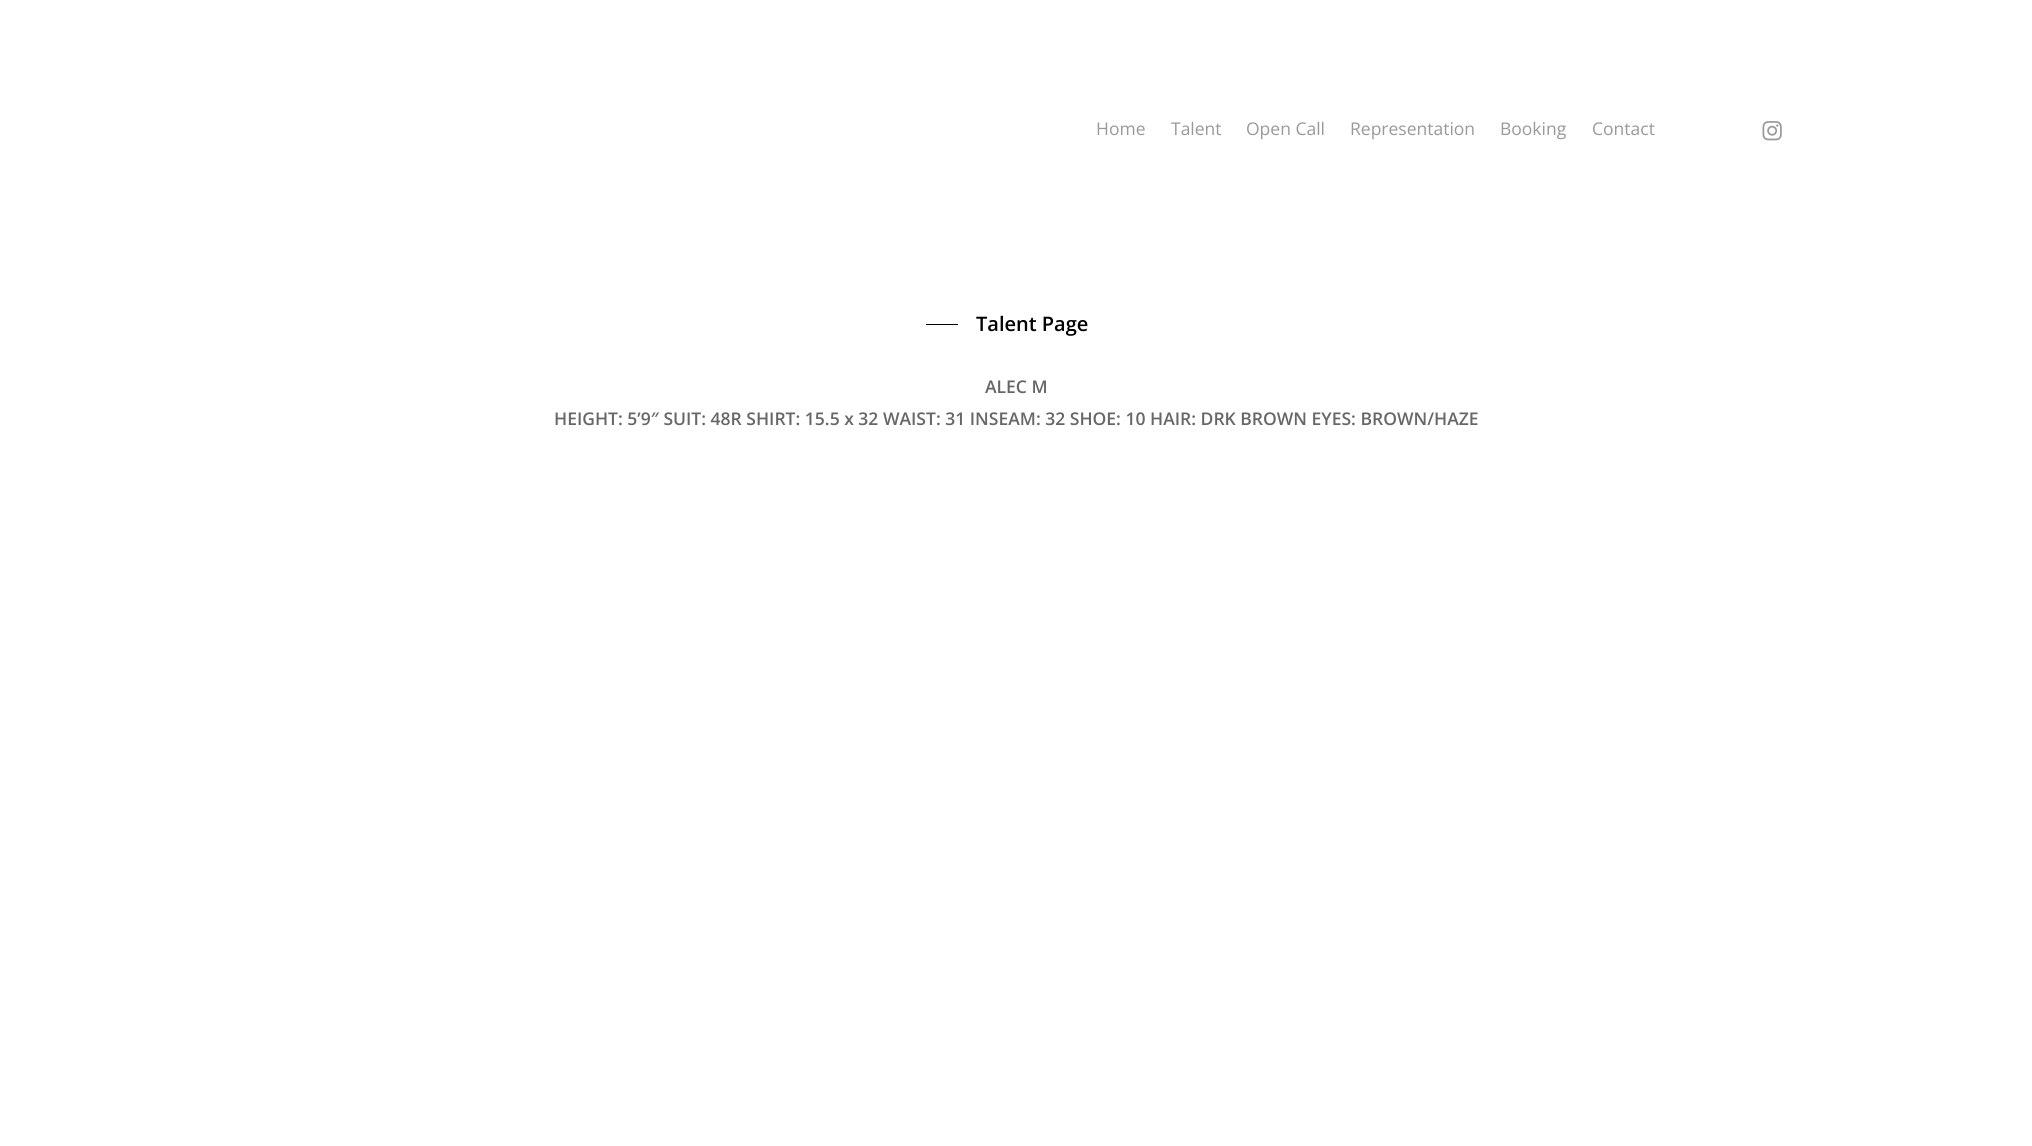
#include <cairo.h>
#include <math.h>
#include <stddef.h>


static void set_color(cairo_t *cr, unsigned color) {
    cairo_set_source_rgb(cr, (color >> 16) / 255.0, (color >> 8 & 255) / 255.0, (color & 255) / 255.0);
}

static void draw_text(cairo_t *cr, double x, double y, const char *s, const char *family, double size, int italic, int bold, unsigned color) {
    cairo_select_font_face(cr, family, italic ? CAIRO_FONT_SLANT_ITALIC : CAIRO_FONT_SLANT_NORMAL,
        bold ? CAIRO_FONT_WEIGHT_BOLD : CAIRO_FONT_WEIGHT_NORMAL);
    cairo_set_font_size(cr, size);
    set_color(cr, color);
    cairo_move_to(cr, x, y);
    cairo_show_text(cr, s);
}

static void fill_rect(cairo_t *cr, double x, double y, double w, double h, unsigned color) {
    set_color(cr, color);
    cairo_rectangle(cr, x, y, w, h);
    cairo_fill(cr);
}

static void draw_image(cairo_t *cr, const char *path, double x, double y, double w, double h) {
    cairo_surface_t *image = cairo_image_surface_create_from_png(path);
    cairo_save(cr);
    cairo_set_source_surface(cr, image, x, y);
    cairo_rectangle(cr, x, y, w, h);
    cairo_fill(cr);
    cairo_restore(cr);
    cairo_surface_destroy(image);
}

int main(void) {
    cairo_surface_t *surface = cairo_image_surface_create(CAIRO_FORMAT_RGB24, 2032, 1146);
    cairo_t *cr = cairo_create(surface);
    cairo_font_options_t *options = cairo_font_options_create();
    cairo_font_options_set_hint_metrics(options, CAIRO_HINT_METRICS_OFF);
    cairo_font_options_set_hint_style(options, CAIRO_HINT_STYLE_NONE);
    cairo_set_font_options(cr, options);
    cairo_set_miter_limit(cr, 4);
    set_color(cr, 0xFFFFFF);
    cairo_paint(cr);
    draw_text(cr, 1096, 135, "Home", "Open Sans", 17.5, 0, 0, 0x999999);
    draw_text(cr, 1171, 135, "Talent", "Open Sans", 17.5, 0, 0, 0x999999);
    draw_text(cr, 1246, 135, "Open Call", "Open Sans", 17.5, 0, 0, 0x999999);
    draw_text(cr, 1350, 135, "Representation", "Open Sans", 17.5, 0, 0, 0x999999);
    draw_text(cr, 1500, 135, "Booking", "Open Sans", 17.5, 0, 0, 0x999999);
    draw_text(cr, 1592, 135, "Contact", "Open Sans", 17.5, 0, 0, 0x999999);
    draw_image(cr, "assets/img1.png", 1762, 121, 20, 20);
    fill_rect(cr, 926, 324, 32, 1, 0x000000);
    draw_text(cr, 976, 331, "Talent Page", "Open Sans SemiBold", 20, 0, 0, 0x000000);
    draw_text(cr, 985, 393, "ALEC M", "Open Sans SemiBold", 17.5, 0, 0, 0x676767);
    draw_text(cr, 554, 425, "HEIGHT: 5’9″ SUIT: 48R SHIRT: 15.5 x 32 WAIST: 31 INSEAM: 32 SHOE: 10 HAIR: DRK BROWN EYES: BROWN/HAZE", "Open Sans SemiBold", 17.5, 0, 0, 0x676767);
    cairo_surface_write_to_png(surface, "output.png");
    cairo_font_options_destroy(options);
    cairo_destroy(cr);
    cairo_surface_destroy(surface);
    return 0;
}
